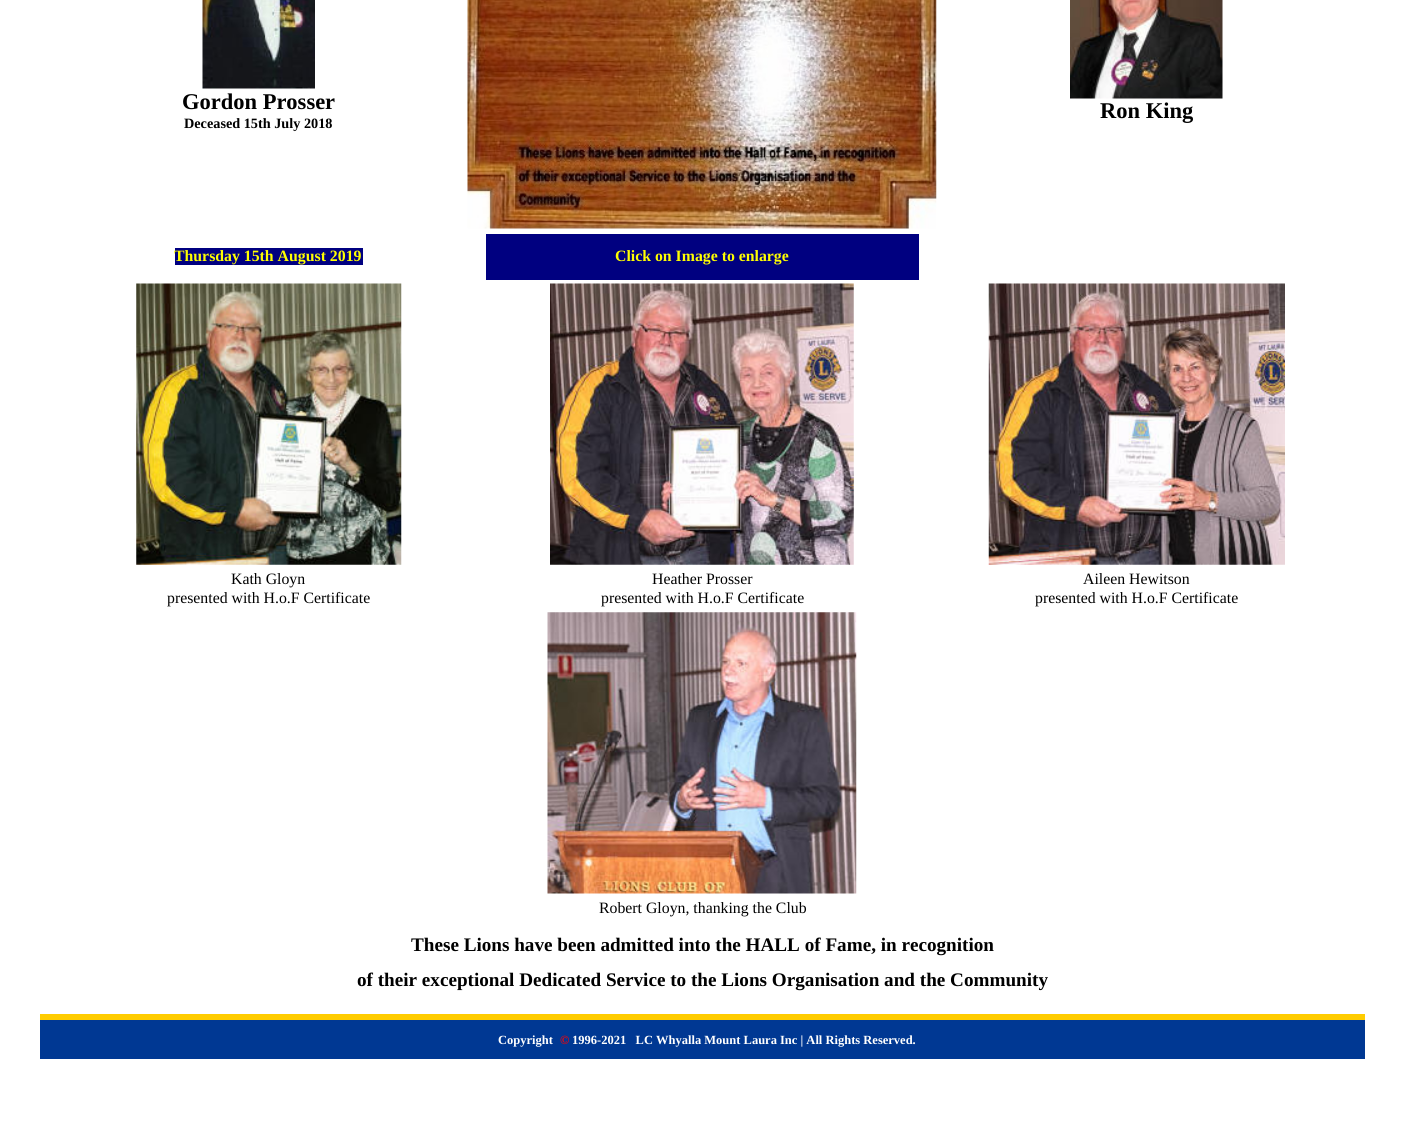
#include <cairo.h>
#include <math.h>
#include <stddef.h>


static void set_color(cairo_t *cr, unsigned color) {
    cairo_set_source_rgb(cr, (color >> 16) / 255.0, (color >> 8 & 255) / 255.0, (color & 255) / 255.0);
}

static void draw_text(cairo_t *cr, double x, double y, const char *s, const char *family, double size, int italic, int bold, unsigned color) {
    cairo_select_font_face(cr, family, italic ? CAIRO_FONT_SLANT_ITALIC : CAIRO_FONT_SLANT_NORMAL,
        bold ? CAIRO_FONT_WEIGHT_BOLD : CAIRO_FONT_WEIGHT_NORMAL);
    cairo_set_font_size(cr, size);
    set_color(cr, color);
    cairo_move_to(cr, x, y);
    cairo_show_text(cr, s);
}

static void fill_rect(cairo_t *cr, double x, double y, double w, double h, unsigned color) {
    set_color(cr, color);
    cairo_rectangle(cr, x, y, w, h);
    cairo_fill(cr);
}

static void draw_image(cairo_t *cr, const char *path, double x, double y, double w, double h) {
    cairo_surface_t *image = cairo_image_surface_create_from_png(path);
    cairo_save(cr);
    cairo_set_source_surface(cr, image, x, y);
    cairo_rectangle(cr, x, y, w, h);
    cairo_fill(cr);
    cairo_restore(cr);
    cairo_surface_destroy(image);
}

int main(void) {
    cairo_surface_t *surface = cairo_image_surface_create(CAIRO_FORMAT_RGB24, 1405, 1121);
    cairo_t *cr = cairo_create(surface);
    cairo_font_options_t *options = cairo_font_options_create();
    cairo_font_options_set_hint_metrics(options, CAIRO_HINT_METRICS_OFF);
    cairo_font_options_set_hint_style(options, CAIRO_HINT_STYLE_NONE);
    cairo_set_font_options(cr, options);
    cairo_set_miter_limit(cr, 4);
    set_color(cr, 0xFFFFFF);
    cairo_paint(cr);
    draw_image(cr, "assets/img1.png", 202, 0, 113, 89);
    draw_text(cr, 182, 109, "Gordon Prosser", "Liberation Serif", 22.5, 0, 1, 0x000000);
    draw_text(cr, 184, 128, "Deceased 15th July 2018", "Liberation Serif", 14.25, 0, 1, 0x000000);
    draw_image(cr, "assets/img2.png", 467, 0, 470, 229);
    draw_image(cr, "assets/img3.png", 1070, 0, 153, 99);
    draw_text(cr, 1100, 118, "Ron King", "Liberation Serif", 22.5, 0, 1, 0x000000);
    fill_rect(cr, 175, 248, 188, 17, 0x000080);
    draw_text(cr, 174, 261, "Thursday 15th August 2019", "Liberation Serif", 15.8, 0, 1, 0xFFFF00);
    fill_rect(cr, 486, 234, 433, 46, 0x000080);
    draw_text(cr, 615, 261, "Click on Image to enlarge", "Liberation Serif", 15.8, 0, 1, 0xFFFF00);
    draw_image(cr, "assets/img4.png", 136, 283, 266, 282);
    draw_image(cr, "assets/img5.png", 550, 283, 304, 282);
    draw_image(cr, "assets/img6.png", 988, 283, 297, 282);
    draw_text(cr, 231, 584, "Kath Gloyn", "Liberation Serif", 15.8, 0, 0, 0x000000);
    draw_text(cr, 167, 603, "presented with H.o.F Certificate", "Liberation Serif", 15.8, 0, 0, 0x000000);
    draw_text(cr, 652, 584, "Heather Prosser", "Liberation Serif", 15.8, 0, 0, 0x000000);
    draw_text(cr, 601, 603, "presented with H.o.F Certificate", "Liberation Serif", 15.8, 0, 0, 0x000000);
    draw_text(cr, 1083, 584, "Aileen Hewitson", "Liberation Serif", 15.8, 0, 0, 0x000000);
    draw_text(cr, 1035, 603, "presented with H.o.F Certificate", "Liberation Serif", 15.8, 0, 0, 0x000000);
    draw_image(cr, "assets/img7.png", 547, 612, 310, 282);
    draw_text(cr, 599, 913, "Robert Gloyn, thanking the Club", "Liberation Serif", 15.8, 0, 0, 0x000000);
    draw_text(cr, 411, 951, "These Lions have been admitted into the HALL of Fame, in recognition", "Liberation Serif", 19.15, 0, 1, 0x000000);
    draw_text(cr, 357, 986, "of their exceptional Dedicated Service to the Lions Organisation and the Community", "Liberation Serif", 19.15, 0, 1, 0x000000);
    fill_rect(cr, 40, 1014, 1325, 6, 0xFFCC00);
    fill_rect(cr, 40, 1020, 1325, 39, 0x003893);
    draw_text(cr, 498, 1044, "Copyright", "Liberation Serif", 12.5, 0, 1, 0xFFFFFF);
    draw_text(cr, 560, 1044, "©", "Liberation Serif", 12.5, 0, 1, 0xFF0000);
    draw_text(cr, 572, 1044, "1996-2021   LC Whyalla Mount Laura Inc | All Rights Reserved.", "Liberation Serif", 12.5, 0, 1, 0xFFFFFF);
    cairo_surface_write_to_png(surface, "output.png");
    cairo_font_options_destroy(options);
    cairo_destroy(cr);
    cairo_surface_destroy(surface);
    return 0;
}
